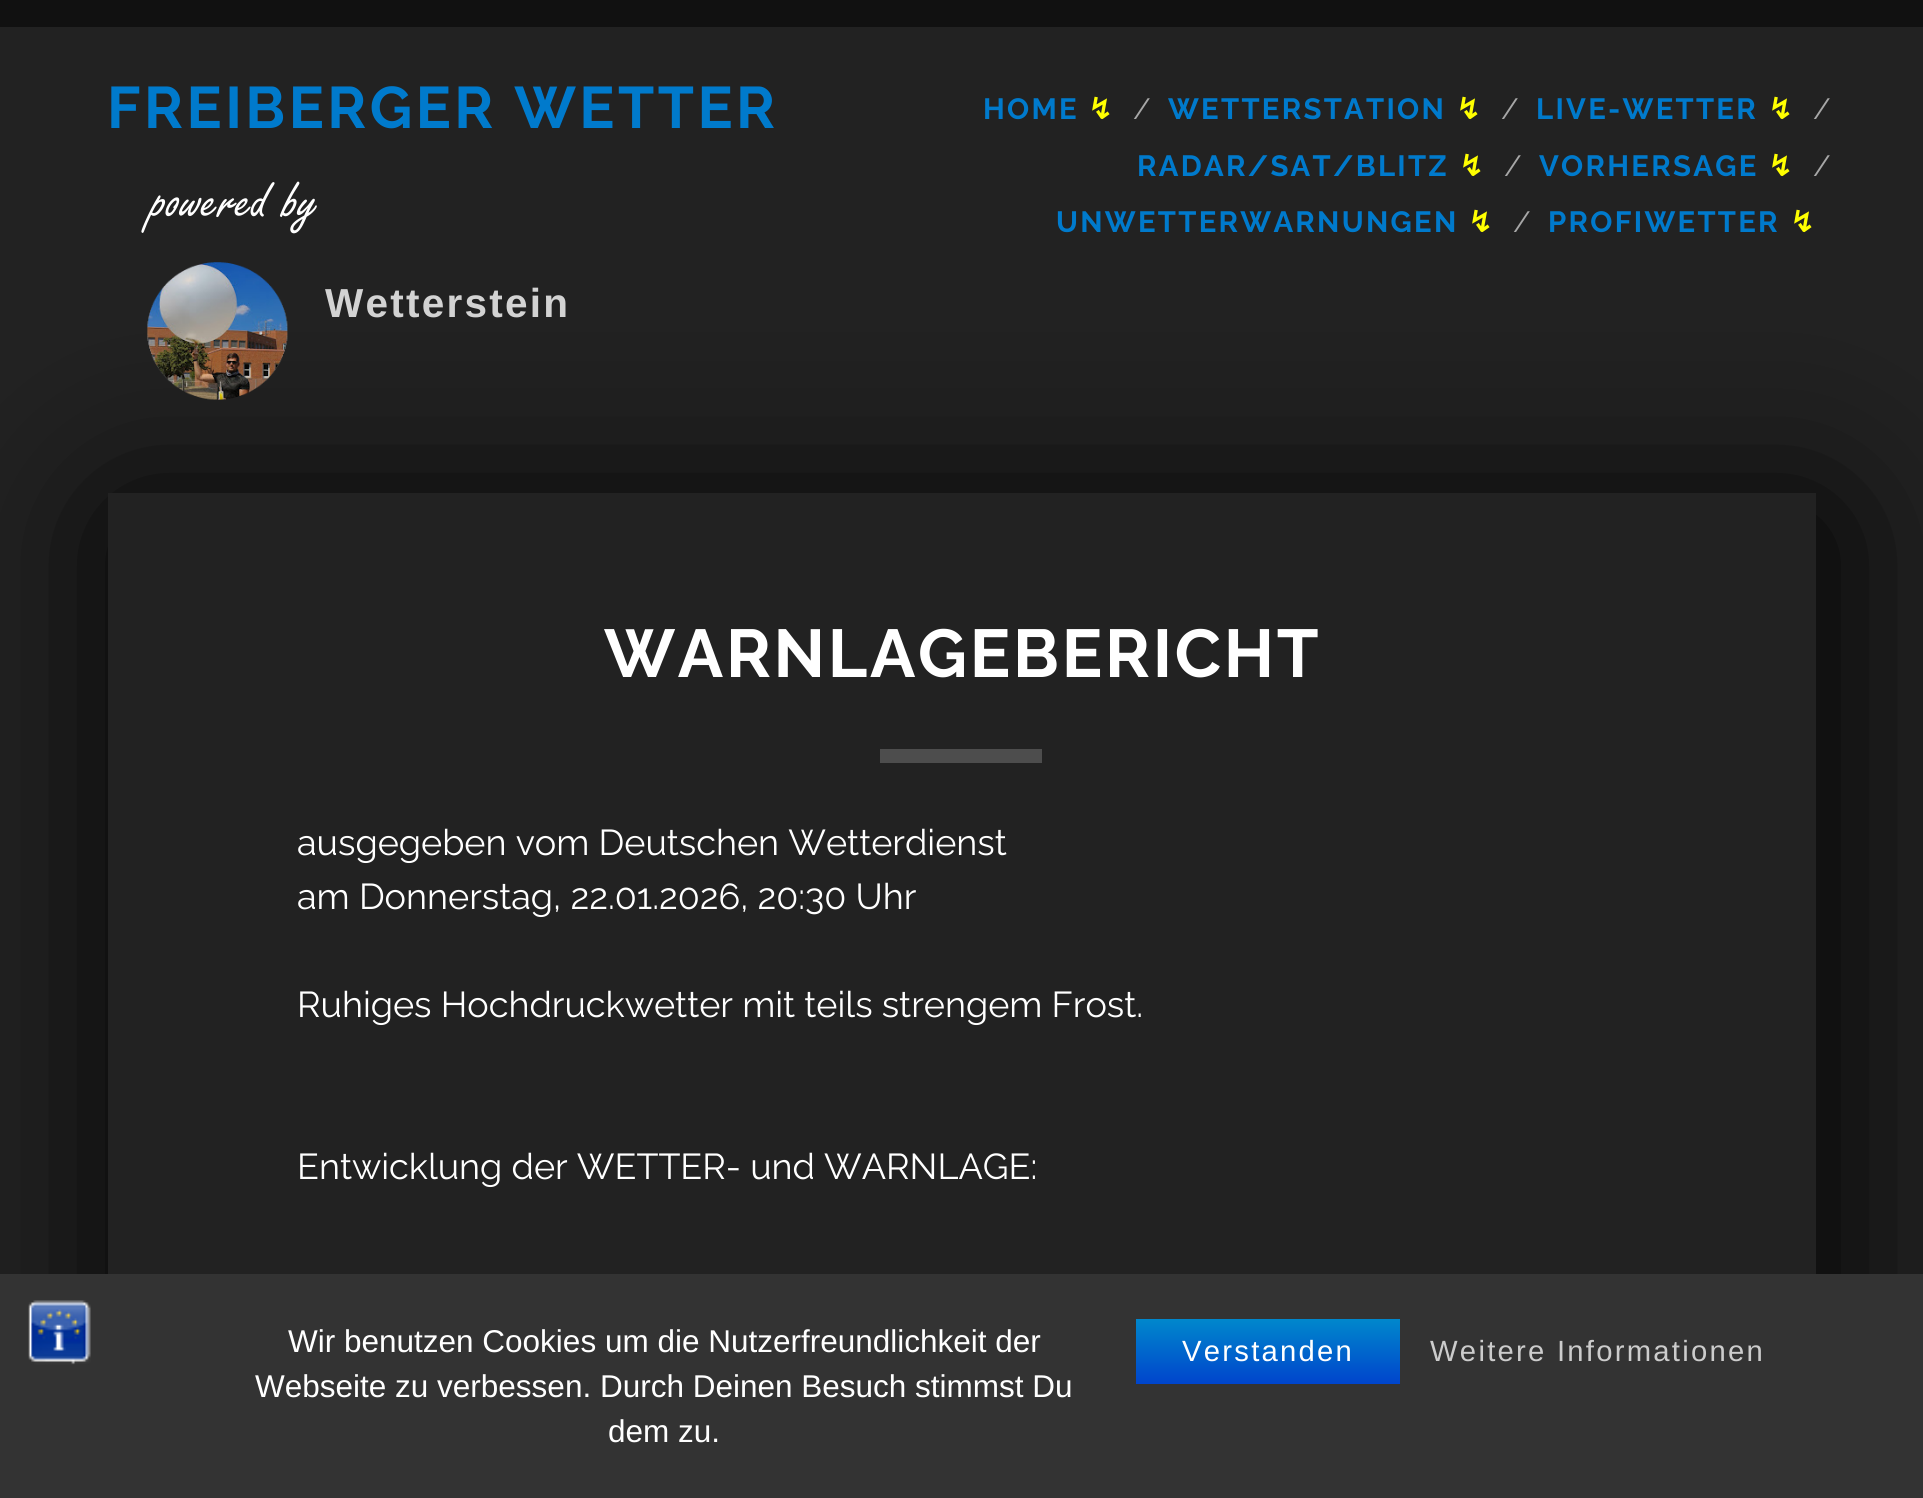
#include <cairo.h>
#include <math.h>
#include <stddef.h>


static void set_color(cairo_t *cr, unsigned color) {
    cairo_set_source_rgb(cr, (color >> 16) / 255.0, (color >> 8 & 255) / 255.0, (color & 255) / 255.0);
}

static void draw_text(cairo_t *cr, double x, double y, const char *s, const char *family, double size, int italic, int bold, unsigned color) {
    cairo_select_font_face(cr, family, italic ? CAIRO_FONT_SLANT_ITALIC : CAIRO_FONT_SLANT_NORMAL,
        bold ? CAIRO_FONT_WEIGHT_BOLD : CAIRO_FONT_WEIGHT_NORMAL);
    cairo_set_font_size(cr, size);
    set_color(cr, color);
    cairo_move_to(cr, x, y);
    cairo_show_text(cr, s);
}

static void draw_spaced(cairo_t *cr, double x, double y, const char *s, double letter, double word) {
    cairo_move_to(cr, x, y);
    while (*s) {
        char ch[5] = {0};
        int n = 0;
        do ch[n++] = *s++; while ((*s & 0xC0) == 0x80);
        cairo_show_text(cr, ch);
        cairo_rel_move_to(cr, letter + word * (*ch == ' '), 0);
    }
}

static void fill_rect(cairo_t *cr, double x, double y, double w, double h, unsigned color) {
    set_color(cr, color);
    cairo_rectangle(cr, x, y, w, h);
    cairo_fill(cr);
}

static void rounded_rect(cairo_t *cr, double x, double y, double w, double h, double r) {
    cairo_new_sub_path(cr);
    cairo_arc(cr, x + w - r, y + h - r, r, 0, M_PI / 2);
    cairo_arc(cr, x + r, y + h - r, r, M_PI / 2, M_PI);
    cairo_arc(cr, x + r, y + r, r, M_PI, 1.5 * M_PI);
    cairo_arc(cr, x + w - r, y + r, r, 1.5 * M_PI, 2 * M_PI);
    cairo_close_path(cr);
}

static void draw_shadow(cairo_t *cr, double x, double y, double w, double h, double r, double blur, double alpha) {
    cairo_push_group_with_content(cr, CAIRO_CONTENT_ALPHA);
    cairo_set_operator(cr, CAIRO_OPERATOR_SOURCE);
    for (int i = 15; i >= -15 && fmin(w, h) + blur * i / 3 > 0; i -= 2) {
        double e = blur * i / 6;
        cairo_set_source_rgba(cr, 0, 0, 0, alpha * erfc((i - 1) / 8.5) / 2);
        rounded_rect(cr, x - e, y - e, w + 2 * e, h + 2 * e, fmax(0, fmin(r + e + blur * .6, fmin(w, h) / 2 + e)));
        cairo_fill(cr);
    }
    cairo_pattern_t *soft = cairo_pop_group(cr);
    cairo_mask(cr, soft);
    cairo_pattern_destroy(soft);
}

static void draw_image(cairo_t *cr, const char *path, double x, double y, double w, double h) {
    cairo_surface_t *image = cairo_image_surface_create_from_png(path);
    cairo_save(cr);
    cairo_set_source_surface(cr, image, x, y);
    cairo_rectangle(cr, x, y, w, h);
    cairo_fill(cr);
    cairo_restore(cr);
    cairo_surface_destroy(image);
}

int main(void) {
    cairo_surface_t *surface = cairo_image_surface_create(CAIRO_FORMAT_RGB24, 1923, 1498);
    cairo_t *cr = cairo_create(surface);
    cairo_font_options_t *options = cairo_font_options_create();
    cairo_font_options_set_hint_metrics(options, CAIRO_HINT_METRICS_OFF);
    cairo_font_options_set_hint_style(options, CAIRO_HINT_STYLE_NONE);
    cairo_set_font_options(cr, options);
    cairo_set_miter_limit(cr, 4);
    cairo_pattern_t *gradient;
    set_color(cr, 0x222222);
    cairo_paint(cr);
    fill_rect(cr, 0, 0, 1923, 27, 0x111111);
    cairo_select_font_face(cr, "Raleway", CAIRO_FONT_SLANT_NORMAL, CAIRO_FONT_WEIGHT_BOLD);
    cairo_set_font_size(cr, 58.5);
    set_color(cr, 0x007ACC);
    draw_spaced(cr, 107, 128, "FREIBERGER WETTER", 3.5, 0);
    draw_text(cr, 152, 218, "powered by", "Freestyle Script", 58.5, 0, 0, 0xFFFFFF);
    set_color(cr, 0x000000);
    draw_shadow(cr, 119, 515, 1708, 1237, 0, 84.5, 1);
    draw_image(cr, "assets/img1.png", 147, 262, 141, 138);
    cairo_select_font_face(cr, "Liberation Sans", CAIRO_FONT_SLANT_NORMAL, CAIRO_FONT_WEIGHT_BOLD);
    cairo_set_font_size(cr, 40.5);
    set_color(cr, 0xD3D3D3);
    draw_spaced(cr, 325, 317, "Wetterstein", 2.25, 0);
    cairo_select_font_face(cr, "Raleway", CAIRO_FONT_SLANT_NORMAL, CAIRO_FONT_WEIGHT_BOLD);
    cairo_set_font_size(cr, 29.25);
    set_color(cr, 0x007ACC);
    draw_spaced(cr, 983, 119, "HOME", 2.3, 0);
    cairo_select_font_face(cr, "DejaVu Sans", CAIRO_FONT_SLANT_NORMAL, CAIRO_FONT_WEIGHT_BOLD);
    set_color(cr, 0xFFFF00);
    draw_spaced(cr, 1088, 119, "↯", 2.3, 0);
    draw_text(cr, 1133, 119, "/", "Raleway", 29.25, 0, 0, 0xA7A7A7);
    cairo_select_font_face(cr, "Raleway", CAIRO_FONT_SLANT_NORMAL, CAIRO_FONT_WEIGHT_BOLD);
    set_color(cr, 0x007ACC);
    draw_spaced(cr, 1168, 119, "WETTERSTATION", 2.3, 0);
    cairo_select_font_face(cr, "DejaVu Sans", CAIRO_FONT_SLANT_NORMAL, CAIRO_FONT_WEIGHT_BOLD);
    set_color(cr, 0xFFFF00);
    draw_spaced(cr, 1456, 119, "↯", 2.3, 0);
    draw_text(cr, 1501, 119, "/", "Raleway", 29.25, 0, 0, 0xA7A7A7);
    cairo_select_font_face(cr, "Raleway", CAIRO_FONT_SLANT_NORMAL, CAIRO_FONT_WEIGHT_BOLD);
    set_color(cr, 0x007ACC);
    draw_spaced(cr, 1536, 119, "LIVE-WETTER", 2.3, 0);
    cairo_select_font_face(cr, "DejaVu Sans", CAIRO_FONT_SLANT_NORMAL, CAIRO_FONT_WEIGHT_BOLD);
    set_color(cr, 0xFFFF00);
    draw_spaced(cr, 1768, 119, "↯", 2.3, 0);
    draw_text(cr, 1813, 119, "/", "Raleway", 29.25, 0, 0, 0xA7A7A7);
    cairo_select_font_face(cr, "Raleway", CAIRO_FONT_SLANT_NORMAL, CAIRO_FONT_WEIGHT_BOLD);
    set_color(cr, 0x007ACC);
    draw_spaced(cr, 1137, 176, "RADAR/SAT/BLITZ", 2.3, 0);
    cairo_select_font_face(cr, "DejaVu Sans", CAIRO_FONT_SLANT_NORMAL, CAIRO_FONT_WEIGHT_BOLD);
    set_color(cr, 0xFFFF00);
    draw_spaced(cr, 1459, 176, "↯", 2.3, 0);
    draw_text(cr, 1504, 176, "/", "Raleway", 29.25, 0, 0, 0xA7A7A7);
    cairo_select_font_face(cr, "Raleway", CAIRO_FONT_SLANT_NORMAL, CAIRO_FONT_WEIGHT_BOLD);
    set_color(cr, 0x007ACC);
    draw_spaced(cr, 1539, 176, "VORHERSAGE", 2.3, 0);
    cairo_select_font_face(cr, "DejaVu Sans", CAIRO_FONT_SLANT_NORMAL, CAIRO_FONT_WEIGHT_BOLD);
    set_color(cr, 0xFFFF00);
    draw_spaced(cr, 1768, 176, "↯", 2.3, 0);
    draw_text(cr, 1813, 176, "/", "Raleway", 29.25, 0, 0, 0xA7A7A7);
    cairo_select_font_face(cr, "Raleway", CAIRO_FONT_SLANT_NORMAL, CAIRO_FONT_WEIGHT_BOLD);
    set_color(cr, 0x007ACC);
    draw_spaced(cr, 1056, 232, "UNWETTERWARNUNGEN", 2.3, 0);
    cairo_select_font_face(cr, "DejaVu Sans", CAIRO_FONT_SLANT_NORMAL, CAIRO_FONT_WEIGHT_BOLD);
    set_color(cr, 0xFFFF00);
    draw_spaced(cr, 1468, 232, "↯", 2.3, 0);
    draw_text(cr, 1513, 232, "/", "Raleway", 29.25, 0, 0, 0xA7A7A7);
    cairo_select_font_face(cr, "Raleway", CAIRO_FONT_SLANT_NORMAL, CAIRO_FONT_WEIGHT_BOLD);
    set_color(cr, 0x007ACC);
    draw_spaced(cr, 1548, 232, "PROFIWETTER", 2.3, 0);
    cairo_select_font_face(cr, "DejaVu Sans", CAIRO_FONT_SLANT_NORMAL, CAIRO_FONT_WEIGHT_BOLD);
    set_color(cr, 0xFFFF00);
    draw_spaced(cr, 1790, 232, "↯", 2.3, 0);
    fill_rect(cr, 108, 493, 1708, 781, 0x222222);
    cairo_select_font_face(cr, "Raleway", CAIRO_FONT_SLANT_NORMAL, CAIRO_FONT_WEIGHT_BOLD);
    cairo_set_font_size(cr, 67.5);
    set_color(cr, 0xFFFFFF);
    draw_spaced(cr, 604, 677, "WARNLAGEBERICHT", 2.75, 0);
    fill_rect(cr, 880, 749, 162, 14, 0x4D4D4D);
    draw_text(cr, 297, 855, "ausgegeben vom Deutschen Wetterdienst", "Raleway", 36, 0, 0, 0xFFFFFF);
    draw_text(cr, 297, 909, "am Donnerstag, 22.01.2026, 20:30 Uhr", "Raleway", 36, 0, 0, 0xFFFFFF);
    draw_text(cr, 297, 1017, "Ruhiges Hochdruckwetter mit teils strengem Frost.", "Raleway", 36, 0, 0, 0xFFFFFF);
    draw_text(cr, 297, 1179, "Entwicklung der WETTER- und WARNLAGE:", "Raleway", 36, 0, 0, 0xFFFFFF);
    fill_rect(cr, 0, 1274, 1923, 224, 0x333333);
    draw_image(cr, "assets/img2.png", 28, 1300, 63, 65);
    draw_text(cr, 288, 1352, "Wir benutzen Cookies um die Nutzerfreundlichkeit der", "Liberation Sans", 31.5, 0, 0, 0xFFFFFF);
    draw_text(cr, 255, 1397, "Webseite zu verbessen. Durch Deinen Besuch stimmst Du", "Liberation Sans", 31.5, 0, 0, 0xFFFFFF);
    draw_text(cr, 608, 1442, "dem zu.", "Liberation Sans", 31.5, 0, 0, 0xFFFFFF);
    gradient = cairo_pattern_create_linear(1268, 1319, 1268, 1384);
    cairo_pattern_add_color_stop_rgba(gradient, 0, 0, 0.533, 0.8, 1);
    cairo_pattern_add_color_stop_rgba(gradient, 1, 0, 0.267, 0.8, 1);
    cairo_set_source(cr, gradient);
    cairo_pattern_destroy(gradient);
    cairo_rectangle(cr, 1136, 1319, 264, 65);
    cairo_fill(cr);
    cairo_set_font_size(cr, 29.25);
    set_color(cr, 0xFFFFFF);
    draw_spaced(cr, 1182, 1361, "Verstanden", 2.25, 0);
    set_color(cr, 0xCCCCCC);
    draw_spaced(cr, 1430, 1361, "Weitere Informationen", 2.25, 0);
    cairo_surface_write_to_png(surface, "output.png");
    cairo_font_options_destroy(options);
    cairo_destroy(cr);
    cairo_surface_destroy(surface);
    return 0;
}
